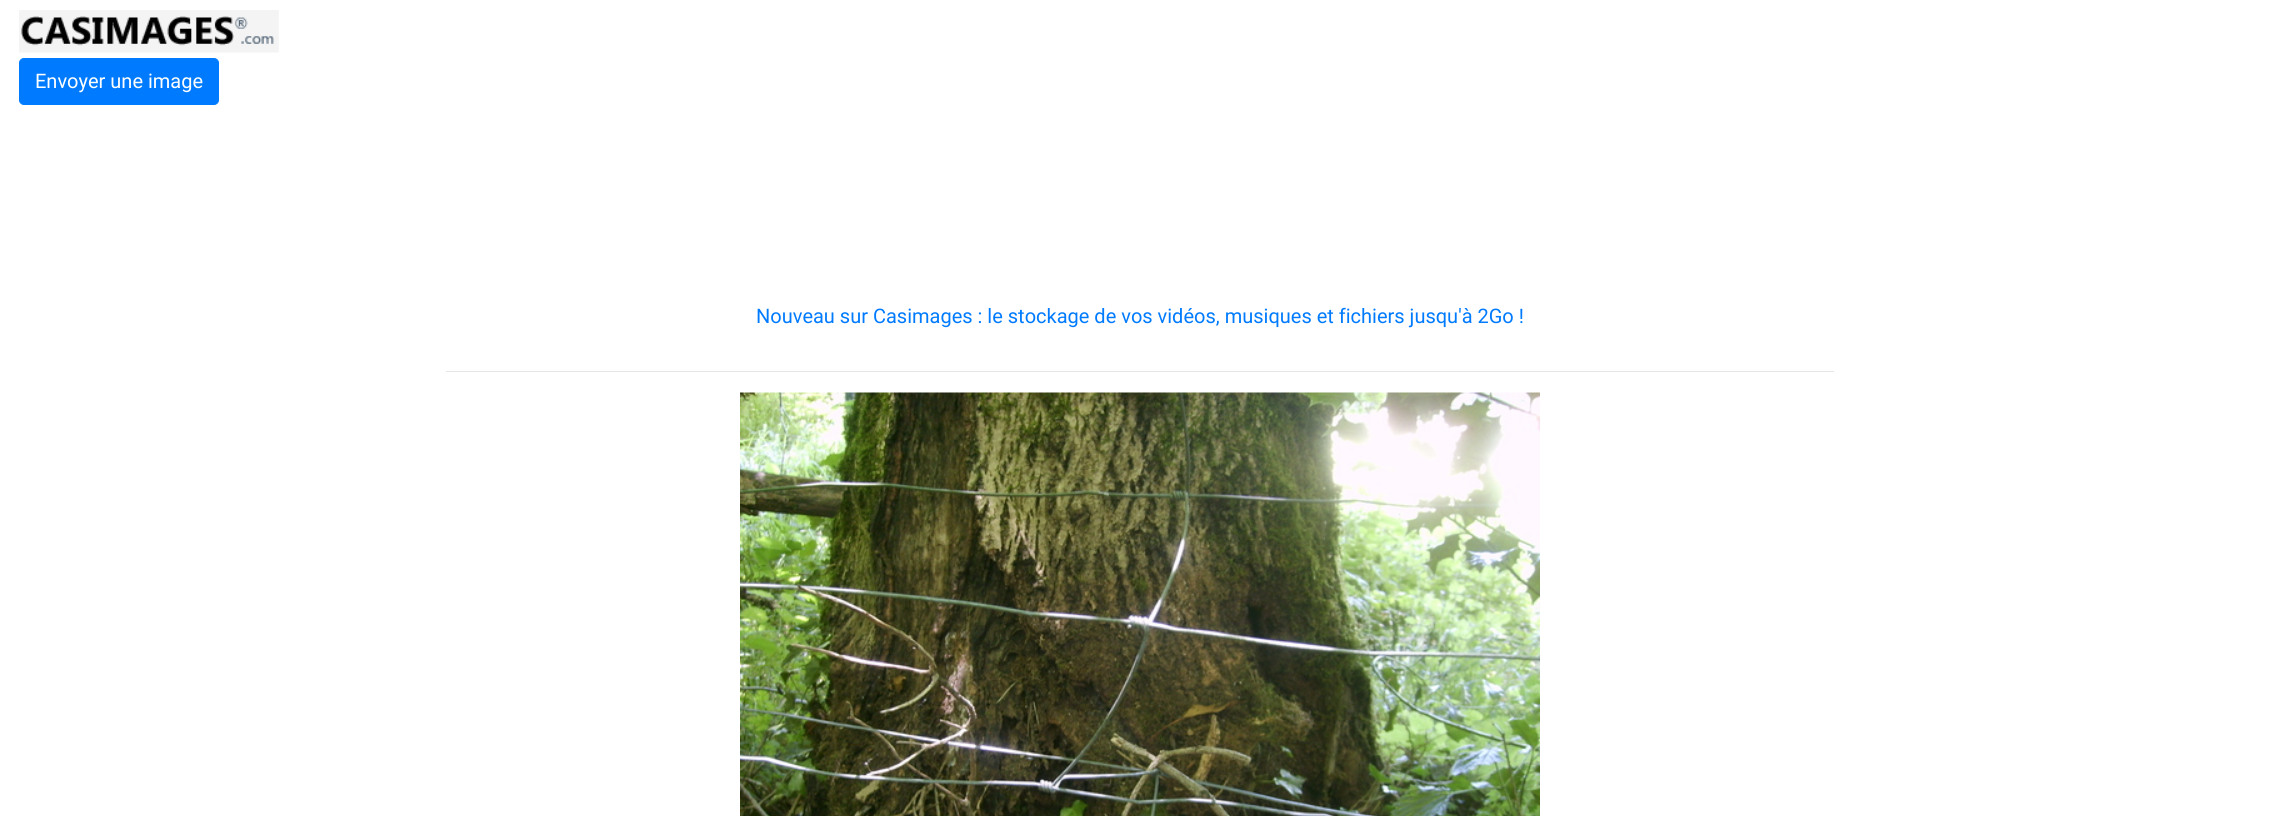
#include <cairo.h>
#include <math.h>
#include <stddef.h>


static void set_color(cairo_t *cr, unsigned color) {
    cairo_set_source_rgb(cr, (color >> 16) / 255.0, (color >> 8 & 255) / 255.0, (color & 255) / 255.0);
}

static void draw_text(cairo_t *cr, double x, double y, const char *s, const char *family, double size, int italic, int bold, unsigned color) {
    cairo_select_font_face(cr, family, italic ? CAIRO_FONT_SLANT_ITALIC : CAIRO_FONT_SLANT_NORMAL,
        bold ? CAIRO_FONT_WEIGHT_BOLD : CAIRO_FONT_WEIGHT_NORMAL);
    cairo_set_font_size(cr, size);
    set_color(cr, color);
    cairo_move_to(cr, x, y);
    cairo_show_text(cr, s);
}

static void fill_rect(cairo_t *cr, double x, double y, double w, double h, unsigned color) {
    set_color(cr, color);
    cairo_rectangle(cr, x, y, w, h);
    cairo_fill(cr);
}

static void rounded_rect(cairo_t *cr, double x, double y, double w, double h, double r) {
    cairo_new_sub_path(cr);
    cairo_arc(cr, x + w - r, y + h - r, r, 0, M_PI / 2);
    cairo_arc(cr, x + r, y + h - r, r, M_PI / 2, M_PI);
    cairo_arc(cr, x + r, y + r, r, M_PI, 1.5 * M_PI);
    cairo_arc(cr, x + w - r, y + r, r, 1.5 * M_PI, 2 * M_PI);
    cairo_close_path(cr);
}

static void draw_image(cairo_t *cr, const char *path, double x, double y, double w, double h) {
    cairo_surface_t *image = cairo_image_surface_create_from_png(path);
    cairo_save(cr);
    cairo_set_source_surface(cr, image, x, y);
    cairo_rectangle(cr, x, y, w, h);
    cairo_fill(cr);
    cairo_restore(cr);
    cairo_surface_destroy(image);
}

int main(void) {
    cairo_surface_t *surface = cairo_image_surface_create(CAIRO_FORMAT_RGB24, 2280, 816);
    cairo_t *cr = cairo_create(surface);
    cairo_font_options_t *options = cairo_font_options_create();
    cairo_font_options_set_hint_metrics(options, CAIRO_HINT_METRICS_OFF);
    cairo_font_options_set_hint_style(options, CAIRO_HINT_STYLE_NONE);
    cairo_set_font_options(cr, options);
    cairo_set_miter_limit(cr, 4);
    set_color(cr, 0xFFFFFF);
    cairo_paint(cr);
    draw_image(cr, "assets/img1.png", 19, 10, 260, 43);
    set_color(cr, 0x007BFF);
    rounded_rect(cr, 19.5, 58.5, 199, 46, 4.5);
    cairo_fill_preserve(cr);
    cairo_set_line_width(cr, 1);
    cairo_stroke(cr);
    draw_text(cr, 35, 88, "Envoyer une image", "Roboto", 20, 0, 0, 0xFFFFFF);
    draw_text(cr, 756, 323, "Nouveau sur Casimages : le stockage de vos vidéos, musiques et fichiers jusqu'à 2Go !", "Roboto", 20, 0, 0, 0x007BFF);
    fill_rect(cr, 446, 371, 1388, 1, 0xE6E6E6);
    draw_image(cr, "assets/img2.png", 740, 392, 800, 424);
    cairo_surface_write_to_png(surface, "output.png");
    cairo_font_options_destroy(options);
    cairo_destroy(cr);
    cairo_surface_destroy(surface);
    return 0;
}
